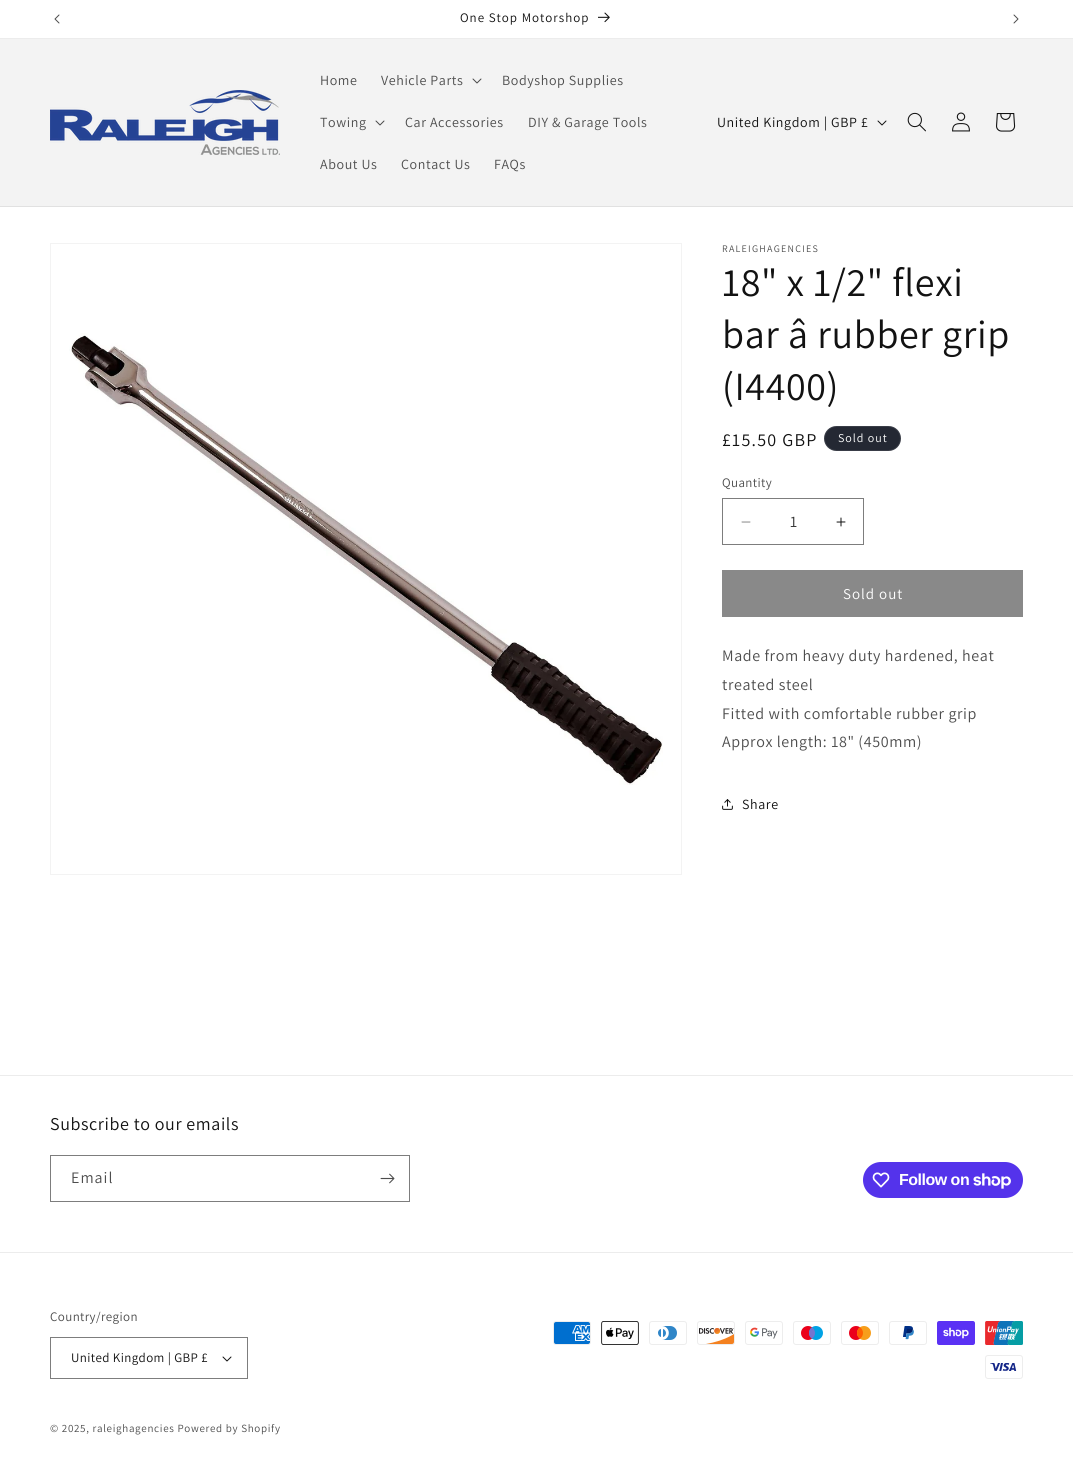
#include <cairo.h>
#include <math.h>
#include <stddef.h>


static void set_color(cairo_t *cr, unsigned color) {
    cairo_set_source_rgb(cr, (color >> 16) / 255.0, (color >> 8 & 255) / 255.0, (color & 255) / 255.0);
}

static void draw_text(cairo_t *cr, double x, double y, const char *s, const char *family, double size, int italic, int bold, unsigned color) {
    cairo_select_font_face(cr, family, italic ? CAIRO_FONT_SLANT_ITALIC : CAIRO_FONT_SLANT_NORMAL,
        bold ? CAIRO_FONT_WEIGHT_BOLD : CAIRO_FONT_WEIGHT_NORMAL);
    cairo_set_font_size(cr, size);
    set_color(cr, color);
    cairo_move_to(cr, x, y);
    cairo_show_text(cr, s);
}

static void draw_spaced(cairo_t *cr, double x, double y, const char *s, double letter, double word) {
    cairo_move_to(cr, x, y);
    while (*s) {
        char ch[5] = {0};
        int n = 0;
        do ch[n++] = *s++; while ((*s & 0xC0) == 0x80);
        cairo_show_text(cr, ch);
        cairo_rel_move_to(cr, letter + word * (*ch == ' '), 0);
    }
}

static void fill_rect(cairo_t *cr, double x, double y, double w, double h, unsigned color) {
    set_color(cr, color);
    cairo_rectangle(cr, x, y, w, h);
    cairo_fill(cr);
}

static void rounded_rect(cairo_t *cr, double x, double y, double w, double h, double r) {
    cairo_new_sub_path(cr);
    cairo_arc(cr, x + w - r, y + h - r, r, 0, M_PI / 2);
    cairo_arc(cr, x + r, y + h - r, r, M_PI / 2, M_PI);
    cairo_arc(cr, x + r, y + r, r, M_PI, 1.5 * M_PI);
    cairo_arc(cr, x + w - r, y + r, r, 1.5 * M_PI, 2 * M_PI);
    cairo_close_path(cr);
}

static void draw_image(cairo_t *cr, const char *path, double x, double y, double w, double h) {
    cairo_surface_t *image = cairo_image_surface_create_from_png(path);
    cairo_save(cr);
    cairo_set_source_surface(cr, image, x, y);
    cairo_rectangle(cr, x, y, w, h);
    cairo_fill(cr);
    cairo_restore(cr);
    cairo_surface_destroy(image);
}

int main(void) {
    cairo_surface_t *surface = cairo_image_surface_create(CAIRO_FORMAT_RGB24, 1073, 1474);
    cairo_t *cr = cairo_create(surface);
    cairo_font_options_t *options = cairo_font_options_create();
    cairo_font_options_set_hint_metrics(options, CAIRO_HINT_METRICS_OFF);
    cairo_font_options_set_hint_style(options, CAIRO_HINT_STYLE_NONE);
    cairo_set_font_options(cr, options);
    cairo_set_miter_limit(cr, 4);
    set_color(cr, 0xFFFFFF);
    cairo_paint(cr);
    fill_rect(cr, 0, 38, 1073, 1, 0xECECEC);
    draw_image(cr, "assets/img1.png", 54, 14, 6, 10);
    cairo_select_font_face(cr, "Assistant", CAIRO_FONT_SLANT_NORMAL, CAIRO_FONT_WEIGHT_NORMAL);
    cairo_set_font_size(cr, 13);
    set_color(cr, 0x121212);
    draw_spaced(cr, 460, 22, "One Stop Motorshop", 1, 0);
    draw_image(cr, "assets/img2.png", 598, 12, 12, 11);
    draw_image(cr, "assets/img3.png", 1013, 14, 6, 10);
    fill_rect(cr, 0, 39, 1073, 167, 0xF3F3F3);
    fill_rect(cr, 0, 206, 1073, 1, 0xE1E1E1);
    draw_image(cr, "assets/img4.png", 50, 90, 230, 65);
    cairo_set_font_size(cr, 14);
    set_color(cr, 0x4D4D4D);
    draw_spaced(cr, 320, 85, "Home", 0.6, 0);
    draw_spaced(cr, 381, 85, "Vehicle Parts", 0.6, 0);
    draw_image(cr, "assets/img5.png", 472, 78, 10, 6);
    draw_spaced(cr, 502, 85, "Bodyshop Supplies", 0.6, 0);
    draw_spaced(cr, 320, 127, "Towing", 0.6, 0);
    draw_image(cr, "assets/img5.png", 375, 120, 10, 6);
    draw_spaced(cr, 405, 127, "Car Accessories", 0.6, 0);
    draw_spaced(cr, 528, 127, "DIY & Garage Tools", 0.6, 0);
    draw_spaced(cr, 320, 169, "About Us", 0.6, 0);
    draw_spaced(cr, 401, 169, "Contact Us", 0.6, 0);
    draw_spaced(cr, 494, 169, "FAQs", 0.6, 0);
    set_color(cr, 0x121212);
    draw_spaced(cr, 717, 127, "United Kingdom | GBP £", 0.6, 0);
    draw_image(cr, "assets/img6.png", 877, 120, 10, 6);
    draw_image(cr, "assets/img7.png", 907, 112, 19, 20);
    draw_image(cr, "assets/img8.png", 952, 112, 18, 20);
    draw_image(cr, "assets/img9.png", 996, 113, 20, 19);
    cairo_rectangle(cr, 50.5, 243.5, 631, 631);
    set_color(cr, 0xF3F3F3);
    cairo_set_line_width(cr, 1);
    cairo_stroke(cr);
    draw_image(cr, "assets/img10.png", 69, 333, 594, 452);
    cairo_set_font_size(cr, 10);
    set_color(cr, 0x4D4D4D);
    draw_spaced(cr, 722, 252, "RALEIGHAGENCIES", 1.25, 0);
    cairo_set_font_size(cr, 40);
    set_color(cr, 0x121212);
    draw_spaced(cr, 722, 296, "18\" x 1/2\" flexi", 0.6, 0);
    draw_spaced(cr, 722, 348, "bar â rubber grip", 0.6, 0);
    draw_spaced(cr, 722, 400, "(I4400)", 0.6, 0);
    cairo_set_font_size(cr, 18);
    draw_spaced(cr, 722, 446, "£15.50 GBP", 1.25, 0);
    set_color(cr, 0x242833);
    rounded_rect(cr, 824, 426, 77, 25, 12.5);
    cairo_fill(cr);
    rounded_rect(cr, 824.5, 426.5, 76, 24, 12);
    cairo_set_source_rgba(cr, 1, 1, 1, 0.1);
    cairo_stroke(cr);
    cairo_set_font_size(cr, 12);
    set_color(cr, 0xFFFFFF);
    draw_spaced(cr, 838, 442, "Sold out", 1, 0);
    cairo_set_font_size(cr, 13);
    set_color(cr, 0x4D4D4D);
    draw_spaced(cr, 722, 487, "Quantity", 0.4, 0);
    draw_image(cr, "assets/img11.png", 741, 521, 10, 2);
    draw_image(cr, "assets/img12.png", 836, 517, 10, 10);
    cairo_rectangle(cr, 722.5, 498.5, 141, 46);
    set_color(cr, 0x7D7D7D);
    cairo_stroke(cr);
    draw_text(cr, 790, 527, "1", "Assistant", 16, 0, 0, 0x363636);
    fill_rect(cr, 722, 570, 301, 47, 0x898989);
    cairo_set_font_size(cr, 15);
    set_color(cr, 0xFFFFFF);
    draw_spaced(cr, 843, 599, "Sold out", 1, 0);
    cairo_set_font_size(cr, 16);
    set_color(cr, 0x4D4D4D);
    draw_spaced(cr, 722, 661, "Made from heavy duty hardened, heat", 0.6, 0);
    draw_spaced(cr, 722, 690, "treated steel", 0.6, 0);
    draw_spaced(cr, 722, 719, "Fitted with comfortable rubber grip", 0.6, 0);
    draw_spaced(cr, 722, 747, "Approx length: 18\" (450mm)", 0.6, 0);
    draw_image(cr, "assets/img13.png", 722, 799, 11, 11);
    cairo_set_font_size(cr, 14);
    set_color(cr, 0x121212);
    draw_spaced(cr, 742, 809, "Share", 0.6, 0);
    fill_rect(cr, 0, 1075, 1073, 1, 0xECECEC);
    cairo_set_font_size(cr, 18);
    set_color(cr, 0x121212);
    draw_spaced(cr, 50, 1130, "Subscribe to our emails", 0.6, 0);
    cairo_rectangle(cr, 50.5, 1155.5, 359, 46);
    set_color(cr, 0x7D7D7D);
    cairo_stroke(cr);
    cairo_set_font_size(cr, 16);
    set_color(cr, 0x4D4D4D);
    draw_spaced(cr, 71, 1183, "Email", 1, 0);
    draw_image(cr, "assets/img14.png", 380, 1173, 15, 11);
    set_color(cr, 0x5433EB);
    rounded_rect(cr, 863, 1162, 160, 36, 18);
    cairo_fill(cr);
    draw_image(cr, "assets/img15.png", 872, 1172, 18, 16);
    cairo_select_font_face(cr, "Liberation Sans", CAIRO_FONT_SLANT_NORMAL, CAIRO_FONT_WEIGHT_BOLD);
    set_color(cr, 0xFFFFFF);
    draw_spaced(cr, 899, 1185, "Follow on", -0.5, 0);
    draw_image(cr, "assets/img16.png", 973, 1173, 38, 16);
    fill_rect(cr, 0, 1252, 1073, 1, 0xECECEC);
    cairo_select_font_face(cr, "Assistant", CAIRO_FONT_SLANT_NORMAL, CAIRO_FONT_WEIGHT_NORMAL);
    cairo_set_font_size(cr, 13);
    set_color(cr, 0x4D4D4D);
    draw_spaced(cr, 50, 1321, "Country/region", 0.4, 0);
    draw_image(cr, "assets/img17.png", 222, 1356, 10, 6);
    cairo_rectangle(cr, 50.5, 1337.5, 197, 41);
    set_color(cr, 0x7D7D7D);
    cairo_stroke(cr);
    set_color(cr, 0x121212);
    draw_spaced(cr, 71, 1362, "United Kingdom | GBP £", 0.4, 0);
    draw_image(cr, "assets/img18.png", 553, 1321, 38, 24);
    draw_image(cr, "assets/img19.png", 601, 1321, 38, 24);
    draw_image(cr, "assets/img20.png", 649, 1321, 38, 24);
    draw_image(cr, "assets/img21.png", 697, 1321, 38, 24);
    draw_image(cr, "assets/img22.png", 745, 1321, 38, 24);
    draw_image(cr, "assets/img23.png", 793, 1321, 38, 24);
    draw_image(cr, "assets/img24.png", 841, 1321, 38, 24);
    draw_image(cr, "assets/img25.png", 889, 1321, 38, 24);
    draw_image(cr, "assets/img26.png", 937, 1321, 38, 24);
    draw_image(cr, "assets/img27.png", 985, 1321, 38, 24);
    draw_image(cr, "assets/img28.png", 985, 1355, 38, 24);
    cairo_set_font_size(cr, 11);
    set_color(cr, 0x4D4D4D);
    draw_spaced(cr, 50, 1432, "© 2025, raleighagencies Powered by Shopify", 0.7, 0);
    cairo_surface_write_to_png(surface, "output.png");
    cairo_font_options_destroy(options);
    cairo_destroy(cr);
    cairo_surface_destroy(surface);
    return 0;
}
